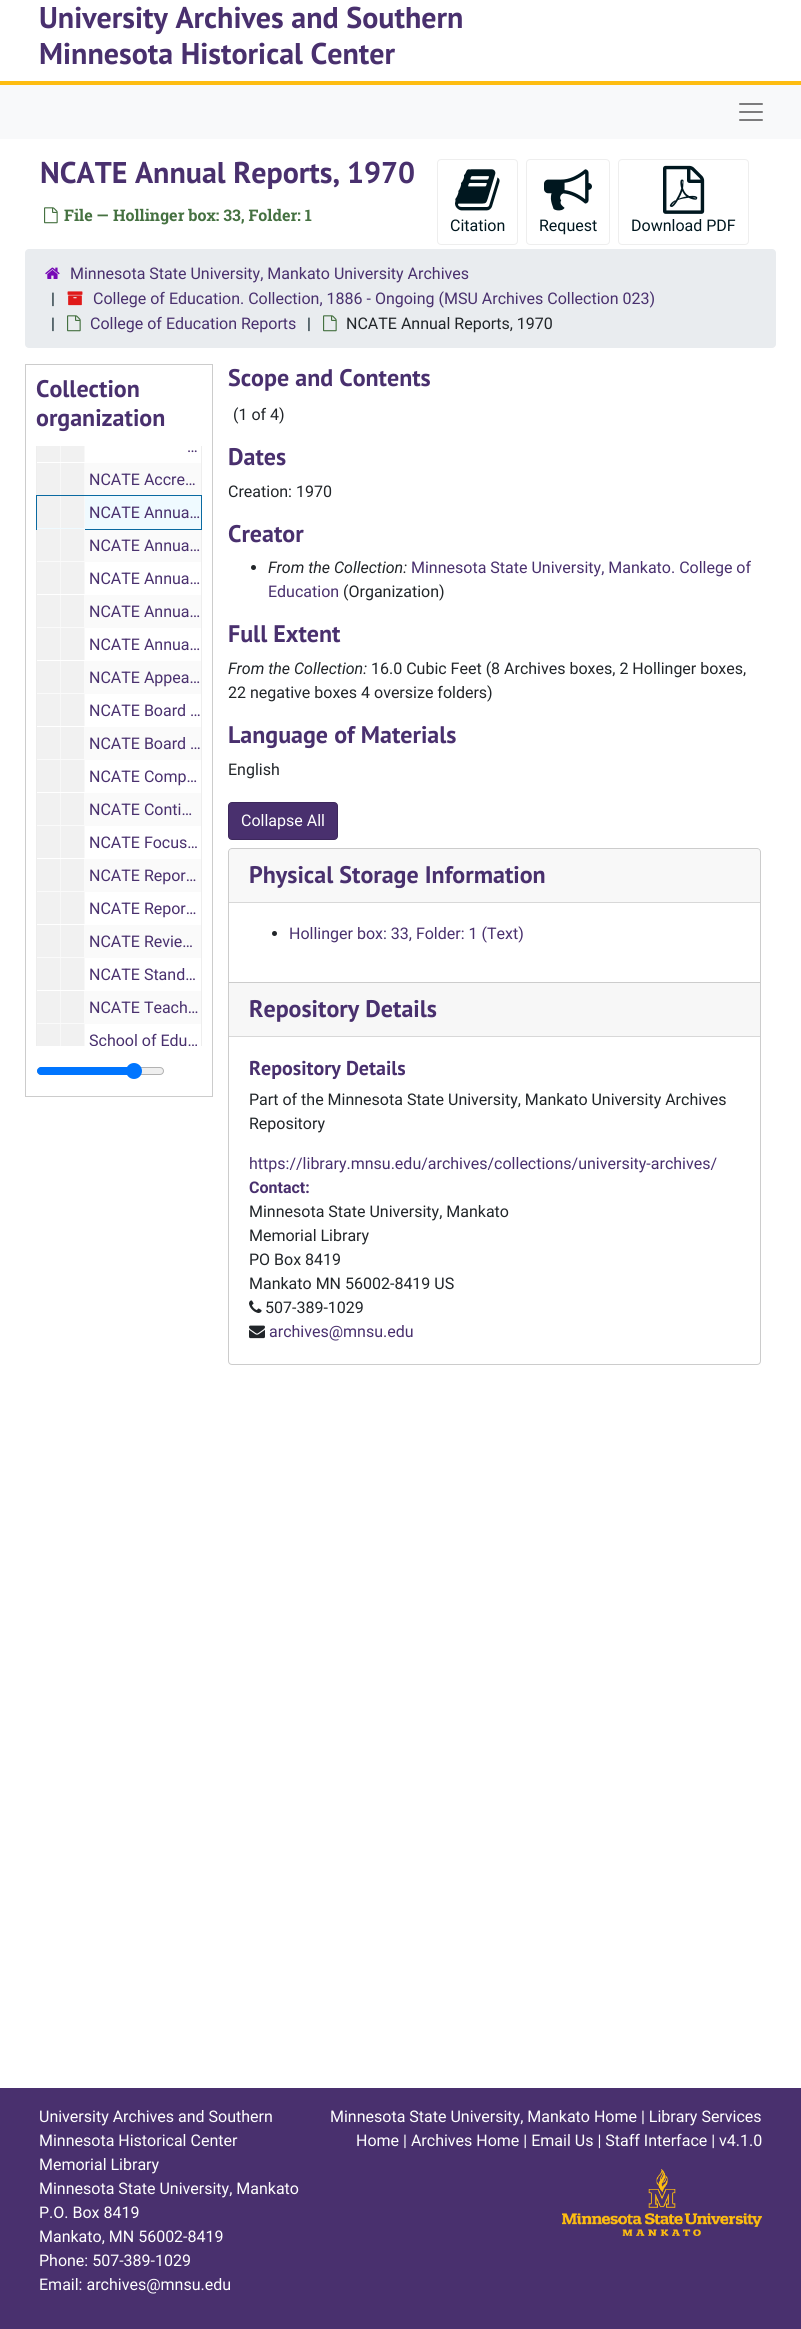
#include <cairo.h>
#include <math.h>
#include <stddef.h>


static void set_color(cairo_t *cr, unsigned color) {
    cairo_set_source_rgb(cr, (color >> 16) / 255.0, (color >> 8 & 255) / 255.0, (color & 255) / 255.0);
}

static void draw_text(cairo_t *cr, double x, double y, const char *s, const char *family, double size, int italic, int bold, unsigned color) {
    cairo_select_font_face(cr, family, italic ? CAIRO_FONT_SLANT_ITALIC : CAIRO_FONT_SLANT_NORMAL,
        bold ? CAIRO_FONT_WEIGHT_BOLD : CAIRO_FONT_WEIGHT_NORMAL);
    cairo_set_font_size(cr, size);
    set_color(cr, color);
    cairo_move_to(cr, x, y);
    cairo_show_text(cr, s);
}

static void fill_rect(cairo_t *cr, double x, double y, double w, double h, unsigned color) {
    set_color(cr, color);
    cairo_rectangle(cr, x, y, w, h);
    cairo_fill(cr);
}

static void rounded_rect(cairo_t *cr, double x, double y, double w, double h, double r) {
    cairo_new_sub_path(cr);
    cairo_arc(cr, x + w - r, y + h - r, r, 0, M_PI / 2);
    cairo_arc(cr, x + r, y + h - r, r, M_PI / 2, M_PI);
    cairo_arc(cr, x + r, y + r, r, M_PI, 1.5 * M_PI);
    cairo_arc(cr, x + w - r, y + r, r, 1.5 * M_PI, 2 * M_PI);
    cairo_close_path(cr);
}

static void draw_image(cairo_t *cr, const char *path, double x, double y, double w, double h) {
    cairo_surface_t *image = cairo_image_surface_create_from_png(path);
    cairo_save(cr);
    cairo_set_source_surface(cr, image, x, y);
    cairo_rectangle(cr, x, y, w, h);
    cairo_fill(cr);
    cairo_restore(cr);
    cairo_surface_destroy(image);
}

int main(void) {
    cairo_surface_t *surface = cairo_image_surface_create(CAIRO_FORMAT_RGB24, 801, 2329);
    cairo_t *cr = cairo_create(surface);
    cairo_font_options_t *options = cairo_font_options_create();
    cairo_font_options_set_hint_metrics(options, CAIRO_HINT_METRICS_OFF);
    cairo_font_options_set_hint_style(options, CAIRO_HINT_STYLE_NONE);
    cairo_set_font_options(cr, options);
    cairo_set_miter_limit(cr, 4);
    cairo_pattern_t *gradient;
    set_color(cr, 0xFFFFFF);
    cairo_paint(cr);
    fill_rect(cr, 0, 81, 801, 4, 0xFEBD11);
    draw_text(cr, 39, 28, "University Archives and Southern", "PT Sans", 30, 0, 1, 0x49306E);
    draw_text(cr, 39, 64, "Minnesota Historical Center", "PT Sans", 30, 0, 1, 0x49306E);
    fill_rect(cr, 0, 85, 801, 54, 0xF8F9FA);
    draw_image(cr, "assets/img1.png", 739, 103, 24, 18);
    draw_text(cr, 40, 183, "NCATE Annual Reports, 1970", "PT Sans", 30, 0, 1, 0x49306E);
    draw_image(cr, "assets/img2.png", 44, 207, 14, 17);
    draw_text(cr, 64, 221, "File — Hollinger box: 33, Folder: 1", "Roboto Slab", 16, 0, 1, 0x457141);
    rounded_rect(cr, 437.5, 159.5, 80, 85, 3.5);
    set_color(cr, 0xEEEEEE);
    cairo_set_line_width(cr, 1);
    cairo_stroke(cr);
    draw_image(cr, "assets/img3.png", 455, 169, 45, 42);
    draw_text(cr, 450, 231, "Citation", "Roboto", 16, 0, 0, 0x00171F);
    rounded_rect(cr, 526.5, 159.5, 83, 85, 3.5);
    set_color(cr, 0xEEEEEE);
    cairo_stroke(cr);
    draw_image(cr, "assets/img4.png", 544, 169, 48, 42);
    draw_text(cr, 539, 231, "Request", "Roboto", 16, 0, 0, 0x00171F);
    rounded_rect(cr, 618.5, 159.5, 130, 85, 3.5);
    set_color(cr, 0xEEEEEE);
    cairo_stroke(cr);
    draw_image(cr, "assets/img5.png", 663, 165, 42, 49);
    draw_text(cr, 631, 231, "Download PDF", "Roboto", 16, 0, 0, 0x00171F);
    set_color(cr, 0xE9ECEF);
    rounded_rect(cr, 25, 249, 751, 99, 4);
    cairo_fill(cr);
    draw_image(cr, "assets/img6.png", 45, 267, 15, 12);
    draw_text(cr, 70, 279, "Minnesota State University, Mankato University Archives", "Roboto", 16, 0, 0, 0x49306E);
    draw_text(cr, 51, 304, "|", "Roboto", 16, 0, 0, 0x00171F);
    draw_image(cr, "assets/img7.png", 67, 291, 16, 15);
    draw_text(cr, 93, 304, "College of Education. Collection, 1886 - Ongoing (MSU Archives Collection 023)", "Roboto", 16, 0, 0, 0x49306E);
    draw_text(cr, 51, 329, "|", "Roboto", 16, 0, 0, 0x00171F);
    draw_image(cr, "assets/img8.png", 67, 315, 14, 17);
    draw_text(cr, 90, 329, "College of Education Reports", "Roboto", 16, 0, 0, 0x49306E);
    draw_text(cr, 307, 329, "|", "Roboto", 16, 0, 0, 0x00171F);
    draw_image(cr, "assets/img8.png", 323, 315, 14, 17);
    draw_text(cr, 346, 329, "NCATE Annual Reports, 1970", "Roboto", 16, 0, 0, 0x212529);
    cairo_rectangle(cr, 25.5, 364.5, 187, 732);
    set_color(cr, 0xCCCCCC);
    cairo_stroke(cr);
    draw_text(cr, 36, 397, "Collection", "PT Sans", 24, 0, 1, 0x49306E);
    draw_text(cr, 36, 426, "organization", "PT Sans", 24, 0, 1, 0x49306E);
    fill_rect(cr, 36, 446, 166, 600, 0xEEEEEE);
    fill_rect(cr, 37, 446, 164, 17, 0xFFFFFF);
    gradient = cairo_pattern_create_linear(37, 446, 85, 446);
    cairo_pattern_add_color_stop_rgba(gradient, 0, 0.945, 0.945, 0.945, 1);
    cairo_pattern_add_color_stop_rgba(gradient, 0.48, 0.945, 0.945, 0.945, 1);
    cairo_pattern_add_color_stop_rgba(gradient, 0.5, 1, 1, 1, 1);
    cairo_pattern_add_color_stop_rgba(gradient, 0.5, 0.945, 0.945, 0.945, 1);
    cairo_pattern_add_color_stop_rgba(gradient, 0.98, 0.945, 0.945, 0.945, 1);
    cairo_pattern_add_color_stop_rgba(gradient, 1, 1, 1, 1, 1);
    cairo_set_source(cr, gradient);
    cairo_pattern_destroy(gradient);
    cairo_rectangle(cr, 37, 446, 48, 16);
    cairo_fill(cr);
    draw_text(cr, 187, 452, "…", "Roboto", 16, 0, 0, 0x49306E);
    fill_rect(cr, 85, 463, 116, 32, 0xFAFAFA);
    gradient = cairo_pattern_create_linear(37, 479, 85, 479);
    cairo_pattern_add_color_stop_rgba(gradient, 0, 0.945, 0.945, 0.945, 1);
    cairo_pattern_add_color_stop_rgba(gradient, 0.48, 0.945, 0.945, 0.945, 1);
    cairo_pattern_add_color_stop_rgba(gradient, 0.5, 1, 1, 1, 1);
    cairo_pattern_add_color_stop_rgba(gradient, 0.5, 0.945, 0.945, 0.945, 1);
    cairo_pattern_add_color_stop_rgba(gradient, 0.98, 0.945, 0.945, 0.945, 1);
    cairo_pattern_add_color_stop_rgba(gradient, 1, 1, 1, 1, 1);
    cairo_set_source(cr, gradient);
    cairo_pattern_destroy(gradient);
    cairo_rectangle(cr, 37, 463, 48, 32);
    cairo_fill(cr);
    draw_text(cr, 89, 485, "NCATE Accre…", "Roboto", 16, 0, 0, 0x49306E);
    cairo_rectangle(cr, 36.5, 495.5, 165, 34);
    set_color(cr, 0x0A6AA1);
    cairo_stroke(cr);
    fill_rect(cr, 37, 496, 164, 33, 0xEFFAFF);
    gradient = cairo_pattern_create_linear(37, 512, 85, 512);
    cairo_pattern_add_color_stop_rgba(gradient, 0, 0.945, 0.945, 0.945, 1);
    cairo_pattern_add_color_stop_rgba(gradient, 0.48, 0.945, 0.945, 0.945, 1);
    cairo_pattern_add_color_stop_rgba(gradient, 0.5, 1, 1, 1, 1);
    cairo_pattern_add_color_stop_rgba(gradient, 0.5, 0.945, 0.945, 0.945, 1);
    cairo_pattern_add_color_stop_rgba(gradient, 0.98, 0.945, 0.945, 0.945, 1);
    cairo_pattern_add_color_stop_rgba(gradient, 1, 1, 1, 1, 1);
    cairo_set_source(cr, gradient);
    cairo_pattern_destroy(gradient);
    cairo_rectangle(cr, 37, 496, 48, 32);
    cairo_fill(cr);
    draw_text(cr, 89, 518, "NCATE Annua…", "Roboto", 16, 0, 0, 0x49306E);
    fill_rect(cr, 37, 530, 164, 32, 0xFAFAFA);
    gradient = cairo_pattern_create_linear(37, 545, 85, 545);
    cairo_pattern_add_color_stop_rgba(gradient, 0, 0.945, 0.945, 0.945, 1);
    cairo_pattern_add_color_stop_rgba(gradient, 0.48, 0.945, 0.945, 0.945, 1);
    cairo_pattern_add_color_stop_rgba(gradient, 0.5, 1, 1, 1, 1);
    cairo_pattern_add_color_stop_rgba(gradient, 0.5, 0.945, 0.945, 0.945, 1);
    cairo_pattern_add_color_stop_rgba(gradient, 0.98, 0.945, 0.945, 0.945, 1);
    cairo_pattern_add_color_stop_rgba(gradient, 1, 1, 1, 1, 1);
    cairo_set_source(cr, gradient);
    cairo_pattern_destroy(gradient);
    cairo_rectangle(cr, 37, 529, 48, 32);
    cairo_fill(cr);
    draw_text(cr, 89, 551, "NCATE Annua…", "Roboto", 16, 0, 0, 0x49306E);
    fill_rect(cr, 37, 562, 164, 33, 0xFFFFFF);
    gradient = cairo_pattern_create_linear(37, 578, 85, 578);
    cairo_pattern_add_color_stop_rgba(gradient, 0, 0.945, 0.945, 0.945, 1);
    cairo_pattern_add_color_stop_rgba(gradient, 0.48, 0.945, 0.945, 0.945, 1);
    cairo_pattern_add_color_stop_rgba(gradient, 0.5, 1, 1, 1, 1);
    cairo_pattern_add_color_stop_rgba(gradient, 0.5, 0.945, 0.945, 0.945, 1);
    cairo_pattern_add_color_stop_rgba(gradient, 0.98, 0.945, 0.945, 0.945, 1);
    cairo_pattern_add_color_stop_rgba(gradient, 1, 1, 1, 1, 1);
    cairo_set_source(cr, gradient);
    cairo_pattern_destroy(gradient);
    cairo_rectangle(cr, 37, 562, 48, 32);
    cairo_fill(cr);
    draw_text(cr, 89, 584, "NCATE Annua…", "Roboto", 16, 0, 0, 0x49306E);
    fill_rect(cr, 37, 595, 164, 33, 0xFAFAFA);
    gradient = cairo_pattern_create_linear(37, 611, 85, 611);
    cairo_pattern_add_color_stop_rgba(gradient, 0, 0.945, 0.945, 0.945, 1);
    cairo_pattern_add_color_stop_rgba(gradient, 0.48, 0.945, 0.945, 0.945, 1);
    cairo_pattern_add_color_stop_rgba(gradient, 0.5, 1, 1, 1, 1);
    cairo_pattern_add_color_stop_rgba(gradient, 0.5, 0.945, 0.945, 0.945, 1);
    cairo_pattern_add_color_stop_rgba(gradient, 0.98, 0.945, 0.945, 0.945, 1);
    cairo_pattern_add_color_stop_rgba(gradient, 1, 1, 1, 1, 1);
    cairo_set_source(cr, gradient);
    cairo_pattern_destroy(gradient);
    cairo_rectangle(cr, 37, 595, 47, 32);
    cairo_fill(cr);
    draw_text(cr, 89, 617, "NCATE Annua…", "Roboto", 16, 0, 0, 0x49306E);
    fill_rect(cr, 37, 628, 164, 33, 0xFFFFFF);
    gradient = cairo_pattern_create_linear(37, 644, 85, 644);
    cairo_pattern_add_color_stop_rgba(gradient, 0, 0.945, 0.945, 0.945, 1);
    cairo_pattern_add_color_stop_rgba(gradient, 0.48, 0.945, 0.945, 0.945, 1);
    cairo_pattern_add_color_stop_rgba(gradient, 0.5, 1, 1, 1, 1);
    cairo_pattern_add_color_stop_rgba(gradient, 0.5, 0.945, 0.945, 0.945, 1);
    cairo_pattern_add_color_stop_rgba(gradient, 0.98, 0.945, 0.945, 0.945, 1);
    cairo_pattern_add_color_stop_rgba(gradient, 1, 1, 1, 1, 1);
    cairo_set_source(cr, gradient);
    cairo_pattern_destroy(gradient);
    cairo_rectangle(cr, 37, 628, 48, 32);
    cairo_fill(cr);
    draw_text(cr, 89, 650, "NCATE Annua…", "Roboto", 16, 0, 0, 0x49306E);
    fill_rect(cr, 37, 661, 164, 33, 0xFAFAFA);
    gradient = cairo_pattern_create_linear(37, 677, 85, 677);
    cairo_pattern_add_color_stop_rgba(gradient, 0, 0.945, 0.945, 0.945, 1);
    cairo_pattern_add_color_stop_rgba(gradient, 0.48, 0.945, 0.945, 0.945, 1);
    cairo_pattern_add_color_stop_rgba(gradient, 0.5, 1, 1, 1, 1);
    cairo_pattern_add_color_stop_rgba(gradient, 0.5, 0.945, 0.945, 0.945, 1);
    cairo_pattern_add_color_stop_rgba(gradient, 0.98, 0.945, 0.945, 0.945, 1);
    cairo_pattern_add_color_stop_rgba(gradient, 1, 1, 1, 1, 1);
    cairo_set_source(cr, gradient);
    cairo_pattern_destroy(gradient);
    cairo_rectangle(cr, 37, 661, 47, 32);
    cairo_fill(cr);
    draw_text(cr, 89, 683, "NCATE Appea…", "Roboto", 16, 0, 0, 0x49306E);
    fill_rect(cr, 37, 694, 164, 33, 0xFFFFFF);
    gradient = cairo_pattern_create_linear(37, 710, 85, 710);
    cairo_pattern_add_color_stop_rgba(gradient, 0, 0.945, 0.945, 0.945, 1);
    cairo_pattern_add_color_stop_rgba(gradient, 0.48, 0.945, 0.945, 0.945, 1);
    cairo_pattern_add_color_stop_rgba(gradient, 0.5, 1, 1, 1, 1);
    cairo_pattern_add_color_stop_rgba(gradient, 0.5, 0.945, 0.945, 0.945, 1);
    cairo_pattern_add_color_stop_rgba(gradient, 0.98, 0.945, 0.945, 0.945, 1);
    cairo_pattern_add_color_stop_rgba(gradient, 1, 1, 1, 1, 1);
    cairo_set_source(cr, gradient);
    cairo_pattern_destroy(gradient);
    cairo_rectangle(cr, 37, 694, 48, 32);
    cairo_fill(cr);
    draw_text(cr, 89, 716, "NCATE Board …", "Roboto", 16, 0, 0, 0x49306E);
    fill_rect(cr, 37, 727, 164, 33, 0xFAFAFA);
    gradient = cairo_pattern_create_linear(37, 743, 85, 743);
    cairo_pattern_add_color_stop_rgba(gradient, 0, 0.945, 0.945, 0.945, 1);
    cairo_pattern_add_color_stop_rgba(gradient, 0.48, 0.945, 0.945, 0.945, 1);
    cairo_pattern_add_color_stop_rgba(gradient, 0.5, 1, 1, 1, 1);
    cairo_pattern_add_color_stop_rgba(gradient, 0.5, 0.945, 0.945, 0.945, 1);
    cairo_pattern_add_color_stop_rgba(gradient, 0.98, 0.945, 0.945, 0.945, 1);
    cairo_pattern_add_color_stop_rgba(gradient, 1, 1, 1, 1, 1);
    cairo_set_source(cr, gradient);
    cairo_pattern_destroy(gradient);
    cairo_rectangle(cr, 37, 727, 47, 32);
    cairo_fill(cr);
    draw_text(cr, 89, 749, "NCATE Board …", "Roboto", 16, 0, 0, 0x49306E);
    fill_rect(cr, 37, 760, 164, 33, 0xFFFFFF);
    gradient = cairo_pattern_create_linear(37, 776, 85, 776);
    cairo_pattern_add_color_stop_rgba(gradient, 0, 0.945, 0.945, 0.945, 1);
    cairo_pattern_add_color_stop_rgba(gradient, 0.48, 0.945, 0.945, 0.945, 1);
    cairo_pattern_add_color_stop_rgba(gradient, 0.5, 1, 1, 1, 1);
    cairo_pattern_add_color_stop_rgba(gradient, 0.5, 0.945, 0.945, 0.945, 1);
    cairo_pattern_add_color_stop_rgba(gradient, 0.98, 0.945, 0.945, 0.945, 1);
    cairo_pattern_add_color_stop_rgba(gradient, 1, 1, 1, 1, 1);
    cairo_set_source(cr, gradient);
    cairo_pattern_destroy(gradient);
    cairo_rectangle(cr, 37, 760, 48, 32);
    cairo_fill(cr);
    draw_text(cr, 89, 782, "NCATE Comp…", "Roboto", 16, 0, 0, 0x49306E);
    fill_rect(cr, 37, 793, 164, 33, 0xFAFAFA);
    gradient = cairo_pattern_create_linear(37, 809, 85, 809);
    cairo_pattern_add_color_stop_rgba(gradient, 0, 0.945, 0.945, 0.945, 1);
    cairo_pattern_add_color_stop_rgba(gradient, 0.48, 0.945, 0.945, 0.945, 1);
    cairo_pattern_add_color_stop_rgba(gradient, 0.5, 1, 1, 1, 1);
    cairo_pattern_add_color_stop_rgba(gradient, 0.5, 0.945, 0.945, 0.945, 1);
    cairo_pattern_add_color_stop_rgba(gradient, 0.98, 0.945, 0.945, 0.945, 1);
    cairo_pattern_add_color_stop_rgba(gradient, 1, 1, 1, 1, 1);
    cairo_set_source(cr, gradient);
    cairo_pattern_destroy(gradient);
    cairo_rectangle(cr, 37, 793, 47, 32);
    cairo_fill(cr);
    draw_text(cr, 89, 815, "NCATE Conti…", "Roboto", 16, 0, 0, 0x49306E);
    fill_rect(cr, 37, 826, 164, 33, 0xFFFFFF);
    gradient = cairo_pattern_create_linear(37, 842, 85, 842);
    cairo_pattern_add_color_stop_rgba(gradient, 0, 0.945, 0.945, 0.945, 1);
    cairo_pattern_add_color_stop_rgba(gradient, 0.48, 0.945, 0.945, 0.945, 1);
    cairo_pattern_add_color_stop_rgba(gradient, 0.5, 1, 1, 1, 1);
    cairo_pattern_add_color_stop_rgba(gradient, 0.5, 0.945, 0.945, 0.945, 1);
    cairo_pattern_add_color_stop_rgba(gradient, 0.98, 0.945, 0.945, 0.945, 1);
    cairo_pattern_add_color_stop_rgba(gradient, 1, 1, 1, 1, 1);
    cairo_set_source(cr, gradient);
    cairo_pattern_destroy(gradient);
    cairo_rectangle(cr, 37, 826, 48, 32);
    cairo_fill(cr);
    draw_text(cr, 89, 848, "NCATE Focus…", "Roboto", 16, 0, 0, 0x49306E);
    fill_rect(cr, 37, 859, 164, 33, 0xFAFAFA);
    gradient = cairo_pattern_create_linear(37, 875, 85, 875);
    cairo_pattern_add_color_stop_rgba(gradient, 0, 0.945, 0.945, 0.945, 1);
    cairo_pattern_add_color_stop_rgba(gradient, 0.48, 0.945, 0.945, 0.945, 1);
    cairo_pattern_add_color_stop_rgba(gradient, 0.5, 1, 1, 1, 1);
    cairo_pattern_add_color_stop_rgba(gradient, 0.5, 0.945, 0.945, 0.945, 1);
    cairo_pattern_add_color_stop_rgba(gradient, 0.98, 0.945, 0.945, 0.945, 1);
    cairo_pattern_add_color_stop_rgba(gradient, 1, 1, 1, 1, 1);
    cairo_set_source(cr, gradient);
    cairo_pattern_destroy(gradient);
    cairo_rectangle(cr, 37, 859, 47, 32);
    cairo_fill(cr);
    draw_text(cr, 89, 881, "NCATE Repor…", "Roboto", 16, 0, 0, 0x49306E);
    fill_rect(cr, 37, 892, 164, 33, 0xFFFFFF);
    gradient = cairo_pattern_create_linear(37, 908, 85, 908);
    cairo_pattern_add_color_stop_rgba(gradient, 0, 0.945, 0.945, 0.945, 1);
    cairo_pattern_add_color_stop_rgba(gradient, 0.48, 0.945, 0.945, 0.945, 1);
    cairo_pattern_add_color_stop_rgba(gradient, 0.5, 1, 1, 1, 1);
    cairo_pattern_add_color_stop_rgba(gradient, 0.5, 0.945, 0.945, 0.945, 1);
    cairo_pattern_add_color_stop_rgba(gradient, 0.98, 0.945, 0.945, 0.945, 1);
    cairo_pattern_add_color_stop_rgba(gradient, 1, 1, 1, 1, 1);
    cairo_set_source(cr, gradient);
    cairo_pattern_destroy(gradient);
    cairo_rectangle(cr, 37, 892, 48, 32);
    cairo_fill(cr);
    draw_text(cr, 89, 914, "NCATE Repor…", "Roboto", 16, 0, 0, 0x49306E);
    fill_rect(cr, 37, 925, 164, 33, 0xFAFAFA);
    gradient = cairo_pattern_create_linear(37, 941, 85, 941);
    cairo_pattern_add_color_stop_rgba(gradient, 0, 0.945, 0.945, 0.945, 1);
    cairo_pattern_add_color_stop_rgba(gradient, 0.48, 0.945, 0.945, 0.945, 1);
    cairo_pattern_add_color_stop_rgba(gradient, 0.5, 1, 1, 1, 1);
    cairo_pattern_add_color_stop_rgba(gradient, 0.5, 0.945, 0.945, 0.945, 1);
    cairo_pattern_add_color_stop_rgba(gradient, 0.98, 0.945, 0.945, 0.945, 1);
    cairo_pattern_add_color_stop_rgba(gradient, 1, 1, 1, 1, 1);
    cairo_set_source(cr, gradient);
    cairo_pattern_destroy(gradient);
    cairo_rectangle(cr, 37, 925, 47, 32);
    cairo_fill(cr);
    draw_text(cr, 89, 947, "NCATE Revie…", "Roboto", 16, 0, 0, 0x49306E);
    fill_rect(cr, 37, 958, 164, 33, 0xFFFFFF);
    gradient = cairo_pattern_create_linear(37, 974, 85, 974);
    cairo_pattern_add_color_stop_rgba(gradient, 0, 0.945, 0.945, 0.945, 1);
    cairo_pattern_add_color_stop_rgba(gradient, 0.48, 0.945, 0.945, 0.945, 1);
    cairo_pattern_add_color_stop_rgba(gradient, 0.5, 1, 1, 1, 1);
    cairo_pattern_add_color_stop_rgba(gradient, 0.5, 0.945, 0.945, 0.945, 1);
    cairo_pattern_add_color_stop_rgba(gradient, 0.98, 0.945, 0.945, 0.945, 1);
    cairo_pattern_add_color_stop_rgba(gradient, 1, 1, 1, 1, 1);
    cairo_set_source(cr, gradient);
    cairo_pattern_destroy(gradient);
    cairo_rectangle(cr, 37, 958, 48, 32);
    cairo_fill(cr);
    draw_text(cr, 89, 980, "NCATE Stand…", "Roboto", 16, 0, 0, 0x49306E);
    fill_rect(cr, 37, 991, 164, 33, 0xFAFAFA);
    gradient = cairo_pattern_create_linear(37, 1007, 85, 1007);
    cairo_pattern_add_color_stop_rgba(gradient, 0, 0.945, 0.945, 0.945, 1);
    cairo_pattern_add_color_stop_rgba(gradient, 0.48, 0.945, 0.945, 0.945, 1);
    cairo_pattern_add_color_stop_rgba(gradient, 0.5, 1, 1, 1, 1);
    cairo_pattern_add_color_stop_rgba(gradient, 0.5, 0.945, 0.945, 0.945, 1);
    cairo_pattern_add_color_stop_rgba(gradient, 0.98, 0.945, 0.945, 0.945, 1);
    cairo_pattern_add_color_stop_rgba(gradient, 1, 1, 1, 1, 1);
    cairo_set_source(cr, gradient);
    cairo_pattern_destroy(gradient);
    cairo_rectangle(cr, 37, 991, 47, 32);
    cairo_fill(cr);
    draw_text(cr, 89, 1013, "NCATE Teach…", "Roboto", 16, 0, 0, 0x49306E);
    fill_rect(cr, 85, 1024, 116, 22, 0xFFFFFF);
    gradient = cairo_pattern_create_linear(37, 1040, 85, 1040);
    cairo_pattern_add_color_stop_rgba(gradient, 0, 0.945, 0.945, 0.945, 1);
    cairo_pattern_add_color_stop_rgba(gradient, 0.48, 0.945, 0.945, 0.945, 1);
    cairo_pattern_add_color_stop_rgba(gradient, 0.5, 1, 1, 1, 1);
    cairo_pattern_add_color_stop_rgba(gradient, 0.5, 0.945, 0.945, 0.945, 1);
    cairo_pattern_add_color_stop_rgba(gradient, 0.98, 0.945, 0.945, 0.945, 1);
    cairo_pattern_add_color_stop_rgba(gradient, 1, 1, 1, 1, 1);
    cairo_set_source(cr, gradient);
    cairo_pattern_destroy(gradient);
    cairo_rectangle(cr, 37, 1024, 48, 22);
    cairo_fill(cr);
    cairo_save(cr);
    cairo_rectangle(cr, 37, 1024, 164, 22);
    cairo_clip(cr);
    draw_text(cr, 89, 1046, "School of Edu…", "Roboto", 16, 0, 0, 0x49306E);
    cairo_restore(cr);
    set_color(cr, 0xEFEFEF);
    rounded_rect(cr, 37.5, 1067.5, 126, 7, 3.5);
    cairo_fill_preserve(cr);
    set_color(cr, 0xB2B2B2);
    cairo_stroke(cr);
    set_color(cr, 0x0075FF);
    cairo_new_path(cr);
    cairo_move_to(cr, 41, 1067);
    cairo_line_to(cr, 134, 1067);
    cairo_line_to(cr, 134, 1075);
    cairo_line_to(cr, 41, 1075);
    cairo_curve_to(cr, 39, 1075, 37, 1073, 37, 1071);
    cairo_curve_to(cr, 37, 1069, 39, 1067, 41, 1067);
    cairo_close_path(cr);
    cairo_fill(cr);
    cairo_arc(cr, 134, 1071, 8, 0, 2 * M_PI);
    cairo_fill(cr);
    draw_text(cr, 228, 386, "Scope and Contents", "PT Sans", 24, 0, 1, 0x49306E);
    draw_text(cr, 233, 420, "(1 of 4)", "Roboto", 16, 0, 0, 0x212529);
    draw_text(cr, 228, 465, "Dates", "PT Sans", 24, 0, 1, 0x49306E);
    draw_text(cr, 228, 497, "Creation: 1970", "Roboto", 16, 0, 0, 0x212529);
    draw_text(cr, 228, 542, "Creator", "PT Sans", 24, 0, 1, 0x49306E);
    set_color(cr, 0x212529);
    cairo_new_path(cr);
    cairo_arc(cr, 253.5, 567.5, 2.5, 0, 2 * M_PI);
    cairo_fill(cr);
    draw_text(cr, 268, 573, "From the Collection:", "Roboto", 16, 1, 0, 0x212529);
    draw_text(cr, 411, 573, "Minnesota State University, Mankato. College of", "Roboto", 16, 0, 0, 0x49306E);
    draw_text(cr, 268, 597, "Education", "Roboto", 16, 0, 0, 0x49306E);
    draw_text(cr, 343, 597, "(Organization)", "Roboto", 16, 0, 0, 0x212529);
    draw_text(cr, 228, 642, "Full Extent", "PT Sans", 24, 0, 1, 0x49306E);
    draw_text(cr, 228, 674, "From the Collection:", "Roboto", 16, 1, 0, 0x212529);
    draw_text(cr, 371, 674, "16.0 Cubic Feet (8 Archives boxes, 2 Hollinger boxes,", "Roboto", 16, 0, 0, 0x212529);
    draw_text(cr, 228, 698, "22 negative boxes 4 oversize folders)", "Roboto", 16, 0, 0, 0x212529);
    draw_text(cr, 228, 743, "Language of Materials", "PT Sans", 24, 0, 1, 0x49306E);
    draw_text(cr, 228, 775, "English", "Roboto", 16, 0, 0, 0x212529);
    set_color(cr, 0x49306E);
    rounded_rect(cr, 228.5, 802.5, 109, 37, 3.5);
    cairo_fill_preserve(cr);
    set_color(cr, 0x3D285C);
    cairo_stroke(cr);
    draw_text(cr, 241, 826, "Collapse All", "Roboto", 16, 0, 0, 0xFFFFFF);
    set_color(cr, 0xCCCCCC);
    cairo_set_fill_rule(cr, CAIRO_FILL_RULE_EVEN_ODD);
    cairo_new_path(cr);
    cairo_move_to(cr, 232, 848);
    cairo_line_to(cr, 757, 848);
    cairo_curve_to(cr, 759, 848, 761, 850, 761, 852);
    cairo_line_to(cr, 761, 982);
    cairo_line_to(cr, 228, 982);
    cairo_line_to(cr, 228, 852);
    cairo_curve_to(cr, 228, 850, 230, 848, 232, 848);
    cairo_close_path(cr);
    cairo_move_to(cr, 232, 849);
    cairo_line_to(cr, 757, 849);
    cairo_curve_to(cr, 759, 849, 760, 850, 760, 852);
    cairo_line_to(cr, 760, 982);
    cairo_line_to(cr, 229, 982);
    cairo_line_to(cr, 229, 852);
    cairo_curve_to(cr, 229, 850, 230, 849, 232, 849);
    cairo_close_path(cr);
    cairo_fill(cr);
    cairo_set_source_rgba(cr, 0, 0, 0, 0.03);
    cairo_rectangle(cr, 229, 849, 531, 53);
    cairo_fill(cr);
    fill_rect(cr, 229, 902, 531, 1, 0xD8D8D8);
    draw_text(cr, 249, 883, "Physical Storage Information", "PT Sans", 24, 0, 1, 0x49306E);
    set_color(cr, 0x212529);
    cairo_new_path(cr);
    cairo_arc(cr, 274.5, 933.5, 2.5, 0, 2 * M_PI);
    cairo_fill(cr);
    draw_text(cr, 289, 939, "Hollinger box: 33, Folder: 1 (Text)", "Roboto", 16, 0, 0, 0x49306E);
    cairo_new_path(cr);
    cairo_move_to(cr, 228.5, 982.5);
    cairo_line_to(cr, 760.5, 982.5);
    cairo_line_to(cr, 760.5, 1361);
    cairo_curve_to(cr, 760.5, 1363, 759, 1364.5, 757, 1364.5);
    cairo_line_to(cr, 232, 1364.5);
    cairo_curve_to(cr, 230, 1364.5, 228.5, 1363, 228.5, 1361);
    cairo_close_path(cr);
    set_color(cr, 0xCCCCCC);
    cairo_stroke(cr);
    fill_rect(cr, 229, 983, 531, 53, 0xF7F7F7);
    fill_rect(cr, 229, 1036, 531, 1, 0xD8D8D8);
    draw_text(cr, 249, 1017, "Repository Details", "PT Sans", 24, 0, 1, 0x49306E);
    draw_text(cr, 249, 1075, "Repository Details", "PT Sans", 20, 0, 1, 0x49306E);
    draw_text(cr, 249, 1105, "Part of the Minnesota State University, Mankato University Archives", "Roboto", 16, 0, 0, 0x212529);
    draw_text(cr, 249, 1129, "Repository", "Roboto", 16, 0, 0, 0x212529);
    draw_text(cr, 249, 1169, "https://library.mnsu.edu/archives/collections/university-archives/", "Roboto", 16, 0, 0, 0x49306E);
    draw_text(cr, 249, 1193, "Contact:", "Roboto", 16, 0, 1, 0x49306E);
    draw_text(cr, 249, 1217, "Minnesota State University, Mankato", "Roboto", 16, 0, 0, 0x212529);
    draw_text(cr, 249, 1241, "Memorial Library", "Roboto", 16, 0, 0, 0x212529);
    draw_text(cr, 249, 1265, "PO Box 8419", "Roboto", 16, 0, 0, 0x212529);
    draw_text(cr, 249, 1289, "Mankato MN 56002-8419 US", "Roboto", 16, 0, 0, 0x212529);
    draw_image(cr, "assets/img9.png", 249, 1300, 13, 13);
    draw_text(cr, 265, 1313, "507-389-1029", "Roboto", 16, 0, 0, 0x212529);
    draw_image(cr, "assets/img10.png", 249, 1325, 16, 14);
    draw_text(cr, 269, 1337, "archives@mnsu.edu", "Roboto", 16, 0, 0, 0x49306E);
    fill_rect(cr, 0, 2088, 801, 241, 0x49306E);
    draw_text(cr, 39, 2122, "University Archives and Southern", "Roboto", 16, 0, 0, 0xFFFFFF);
    draw_text(cr, 39, 2146, "Minnesota Historical Center", "Roboto", 16, 0, 0, 0xFFFFFF);
    draw_text(cr, 39, 2170, "Memorial Library", "Roboto", 16, 0, 0, 0xFFFFFF);
    draw_text(cr, 39, 2194, "Minnesota State University, Mankato", "Roboto", 16, 0, 0, 0xFFFFFF);
    draw_text(cr, 39, 2218, "P.O. Box 8419", "Roboto", 16, 0, 0, 0xFFFFFF);
    draw_text(cr, 39, 2242, "Mankato, MN 56002-8419", "Roboto", 16, 0, 0, 0xFFFFFF);
    draw_text(cr, 39, 2266, "Phone: 507-389-1029", "Roboto", 16, 0, 0, 0xFFFFFF);
    draw_text(cr, 39, 2290, "Email: archives@mnsu.edu", "Roboto", 16, 0, 0, 0xFFFFFF);
    draw_text(cr, 330, 2122, "Minnesota State University, Mankato Home | Library Services", "Roboto", 16, 0, 0, 0xFFFFFF);
    draw_text(cr, 356, 2146, "Home | Archives Home | Email Us | Staff Interface | v4.1.0", "Roboto", 16, 0, 0, 0xFFFFFF);
    draw_image(cr, "assets/img11.png", 562, 2169, 200, 67);
    cairo_surface_write_to_png(surface, "output.png");
    cairo_font_options_destroy(options);
    cairo_destroy(cr);
    cairo_surface_destroy(surface);
    return 0;
}
